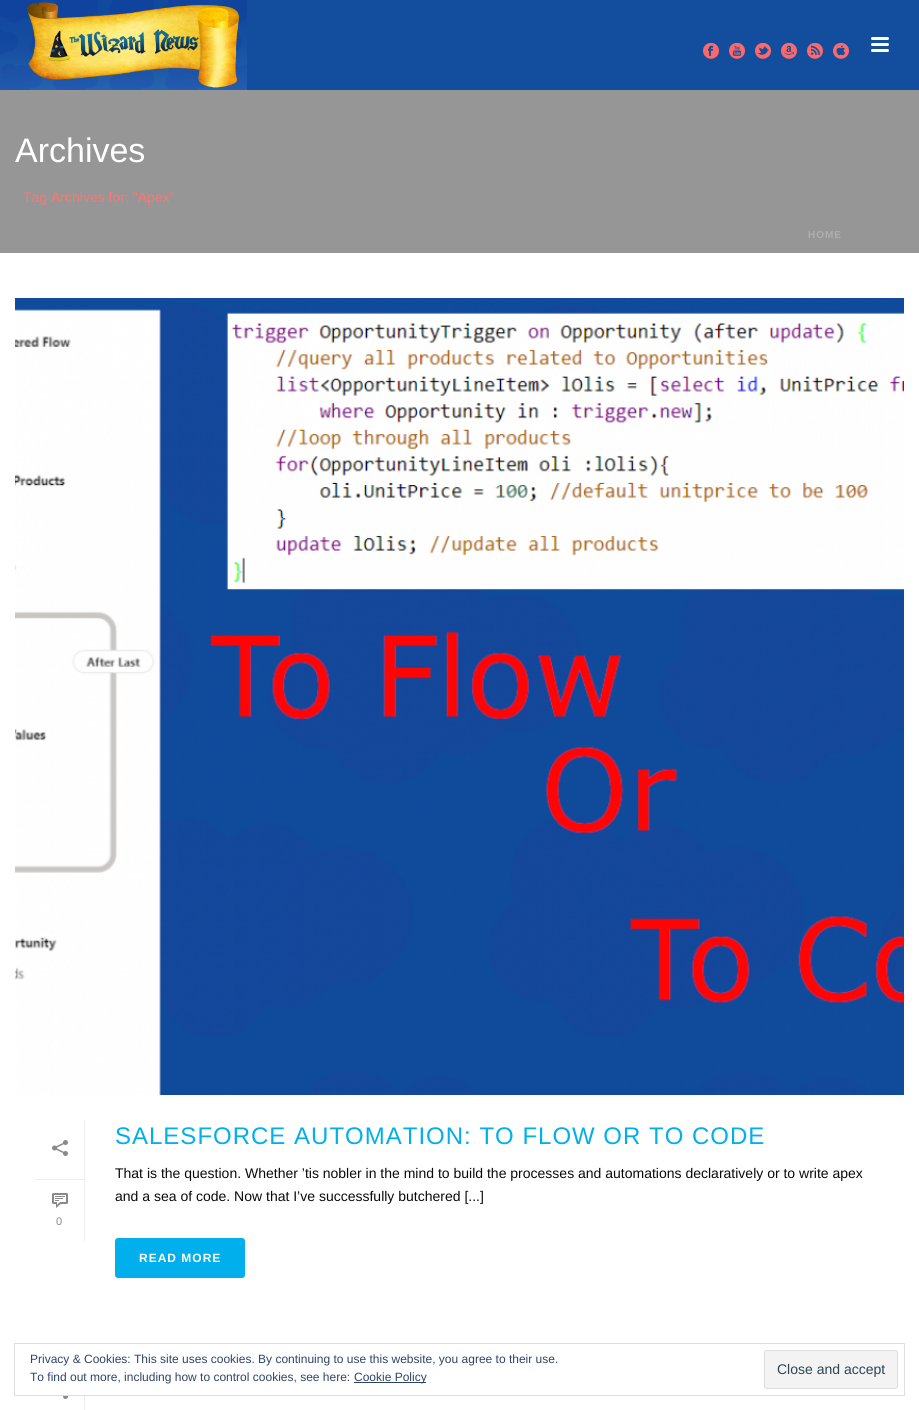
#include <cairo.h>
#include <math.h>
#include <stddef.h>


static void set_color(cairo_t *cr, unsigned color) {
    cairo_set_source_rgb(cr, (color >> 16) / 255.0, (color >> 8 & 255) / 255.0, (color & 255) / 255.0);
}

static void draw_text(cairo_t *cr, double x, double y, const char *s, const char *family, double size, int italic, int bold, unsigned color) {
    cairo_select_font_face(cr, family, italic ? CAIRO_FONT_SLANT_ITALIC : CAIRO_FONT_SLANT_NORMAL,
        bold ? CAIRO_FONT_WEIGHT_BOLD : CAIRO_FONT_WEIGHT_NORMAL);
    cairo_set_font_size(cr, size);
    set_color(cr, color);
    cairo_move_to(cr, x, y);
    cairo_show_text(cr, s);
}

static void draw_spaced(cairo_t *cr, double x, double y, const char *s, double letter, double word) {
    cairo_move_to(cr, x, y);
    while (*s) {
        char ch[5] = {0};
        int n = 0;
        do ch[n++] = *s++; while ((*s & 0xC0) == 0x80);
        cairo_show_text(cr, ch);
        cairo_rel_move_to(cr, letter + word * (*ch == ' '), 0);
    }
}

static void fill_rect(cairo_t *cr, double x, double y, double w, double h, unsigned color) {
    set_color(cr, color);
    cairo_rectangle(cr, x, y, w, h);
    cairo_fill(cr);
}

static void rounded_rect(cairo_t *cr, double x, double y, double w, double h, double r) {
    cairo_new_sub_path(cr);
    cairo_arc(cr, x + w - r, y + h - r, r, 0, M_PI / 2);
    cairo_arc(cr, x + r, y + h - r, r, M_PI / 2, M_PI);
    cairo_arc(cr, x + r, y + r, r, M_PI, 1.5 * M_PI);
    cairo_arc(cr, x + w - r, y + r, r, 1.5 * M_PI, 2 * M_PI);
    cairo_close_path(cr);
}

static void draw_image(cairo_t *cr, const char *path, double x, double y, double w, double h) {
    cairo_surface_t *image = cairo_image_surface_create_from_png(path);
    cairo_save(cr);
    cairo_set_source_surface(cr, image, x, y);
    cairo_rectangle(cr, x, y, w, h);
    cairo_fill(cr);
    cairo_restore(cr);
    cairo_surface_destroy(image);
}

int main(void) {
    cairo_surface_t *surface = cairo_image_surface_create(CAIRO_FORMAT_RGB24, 919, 1410);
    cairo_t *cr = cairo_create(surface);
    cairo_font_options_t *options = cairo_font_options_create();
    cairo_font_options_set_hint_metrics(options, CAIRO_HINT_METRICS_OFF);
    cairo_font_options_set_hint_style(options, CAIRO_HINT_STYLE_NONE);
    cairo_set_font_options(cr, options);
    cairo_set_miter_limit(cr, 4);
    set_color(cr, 0xFFFFFF);
    cairo_paint(cr);
    draw_image(cr, "assets/img1.png", 0, 0, 247, 90);
    fill_rect(cr, 247, 0, 672, 90, 0x134E9E);
    set_color(cr, 0xFFFFFF);
    rounded_rect(cr, 871, 37, 18, 3, 1.5);
    cairo_fill(cr);
    rounded_rect(cr, 871, 43, 18, 3, 1.5);
    cairo_fill(cr);
    rounded_rect(cr, 871, 49, 18, 3, 1.5);
    cairo_fill(cr);
    draw_image(cr, "assets/img2.png", 703, 43, 16, 16);
    draw_image(cr, "assets/img3.png", 729, 43, 16, 16);
    draw_image(cr, "assets/img4.png", 755, 43, 16, 16);
    draw_image(cr, "assets/img5.png", 781, 43, 16, 16);
    draw_image(cr, "assets/img6.png", 807, 43, 16, 16);
    draw_image(cr, "assets/img7.png", 833, 43, 16, 16);
    fill_rect(cr, 0, 90, 919, 163, 0x969696);
    draw_text(cr, 15, 162, "Archives", "Liberation Sans", 34, 0, 0, 0xFFFFFF);
    draw_text(cr, 23, 202, "Tag Archives for: \"Apex\"", "Liberation Sans", 14, 0, 0, 0xFF7575);
    cairo_select_font_face(cr, "Liberation Sans", CAIRO_FONT_SLANT_NORMAL, CAIRO_FONT_WEIGHT_BOLD);
    cairo_set_font_size(cr, 10);
    set_color(cr, 0xAFAFAF);
    draw_spaced(cr, 808, 238, "HOME", 1, 0);
    draw_image(cr, "assets/img8.png", 15, 298, 889, 797);
    fill_rect(cr, 84, 1120, 1, 121, 0xEFEFEF);
    fill_rect(cr, 35, 1179, 49, 1, 0xEFEFEF);
    draw_image(cr, "assets/img9.png", 52, 1140, 16, 16);
    draw_image(cr, "assets/img10.png", 52, 1193, 16, 15);
    draw_text(cr, 56, 1225, "0", "Liberation Sans", 11, 0, 0, 0x898989);
    cairo_set_font_size(cr, 24);
    set_color(cr, 0x00AFEC);
    draw_spaced(cr, 115, 1144, "SALESFORCE AUTOMATION: TO FLOW OR TO CODE", 1, 0);
    draw_text(cr, 115, 1178, "That is the question. Whether ’tis nobler in the mind to build the processes and automations declaratively or to write apex", "Liberation Sans", 14, 0, 0, 0x0A0A0A);
    draw_text(cr, 115, 1201, "and a sea of code. Now that I’ve successfully butchered [...]", "Liberation Sans", 14, 0, 0, 0x0A0A0A);
    set_color(cr, 0x00AFEC);
    rounded_rect(cr, 115, 1238, 130, 40, 3);
    cairo_fill(cr);
    cairo_select_font_face(cr, "Liberation Sans", CAIRO_FONT_SLANT_NORMAL, CAIRO_FONT_WEIGHT_BOLD);
    cairo_set_font_size(cr, 12);
    set_color(cr, 0xFFFFFF);
    draw_spaced(cr, 139, 1262, "READ MORE", 1, 0);
    fill_rect(cr, 84, 1396, 1, 14, 0xEFEFEF);
    draw_image(cr, "assets/img11.png", 63, 1396, 5, 3);
    cairo_rectangle(cr, 14.5, 1343.5, 890, 52);
    set_color(cr, 0xDEDEDE);
    cairo_set_line_width(cr, 1);
    cairo_stroke(cr);
    draw_text(cr, 30, 1363, "Privacy & Cookies: This site uses cookies. By continuing to use this website, you agree to their use.", "Liberation Sans", 12, 0, 0, 0x2E4467);
    draw_text(cr, 30, 1381, "To find out more, including how to control cookies, see here:", "Liberation Sans", 12, 0, 0, 0x2E4467);
    fill_rect(cr, 354, 1382, 72, 1, 0x2E4467);
    draw_text(cr, 354, 1381, "Cookie Policy", "Liberation Sans", 12, 0, 0, 0x2E4467);
    set_color(cr, 0xF3F3F3);
    rounded_rect(cr, 764.5, 1350.5, 133, 38, 2.5);
    cairo_fill_preserve(cr);
    set_color(cr, 0xDEDEDE);
    cairo_stroke(cr);
    draw_text(cr, 777, 1374, "Close and accept", "Liberation Sans", 14, 0, 0, 0x2E4453);
    cairo_surface_write_to_png(surface, "output.png");
    cairo_font_options_destroy(options);
    cairo_destroy(cr);
    cairo_surface_destroy(surface);
    return 0;
}
